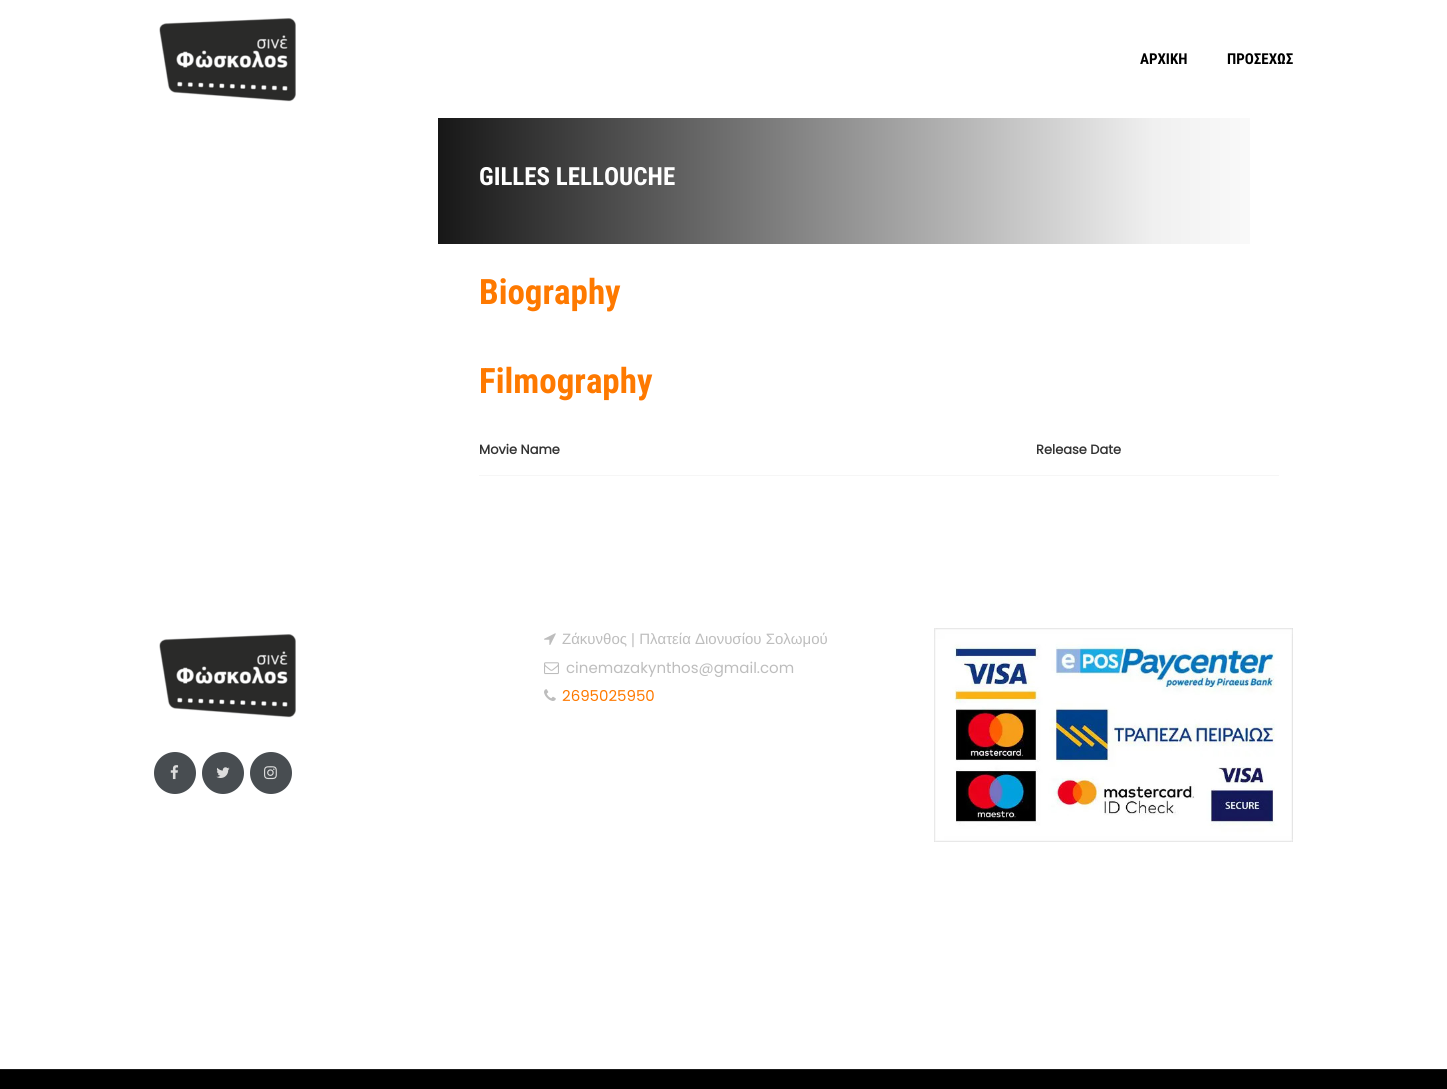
#include <cairo.h>
#include <math.h>
#include <stddef.h>


static void set_color(cairo_t *cr, unsigned color) {
    cairo_set_source_rgb(cr, (color >> 16) / 255.0, (color >> 8 & 255) / 255.0, (color & 255) / 255.0);
}

static void draw_text(cairo_t *cr, double x, double y, const char *s, const char *family, double size, int italic, int bold, unsigned color) {
    cairo_select_font_face(cr, family, italic ? CAIRO_FONT_SLANT_ITALIC : CAIRO_FONT_SLANT_NORMAL,
        bold ? CAIRO_FONT_WEIGHT_BOLD : CAIRO_FONT_WEIGHT_NORMAL);
    cairo_set_font_size(cr, size);
    set_color(cr, color);
    cairo_move_to(cr, x, y);
    cairo_show_text(cr, s);
}

static void fill_rect(cairo_t *cr, double x, double y, double w, double h, unsigned color) {
    set_color(cr, color);
    cairo_rectangle(cr, x, y, w, h);
    cairo_fill(cr);
}

static void draw_image(cairo_t *cr, const char *path, double x, double y, double w, double h) {
    cairo_surface_t *image = cairo_image_surface_create_from_png(path);
    cairo_save(cr);
    cairo_set_source_surface(cr, image, x, y);
    cairo_rectangle(cr, x, y, w, h);
    cairo_fill(cr);
    cairo_restore(cr);
    cairo_surface_destroy(image);
}

int main(void) {
    cairo_surface_t *surface = cairo_image_surface_create(CAIRO_FORMAT_RGB24, 1447, 1089);
    cairo_t *cr = cairo_create(surface);
    cairo_font_options_t *options = cairo_font_options_create();
    cairo_font_options_set_hint_metrics(options, CAIRO_HINT_METRICS_OFF);
    cairo_font_options_set_hint_style(options, CAIRO_HINT_STYLE_NONE);
    cairo_set_font_options(cr, options);
    cairo_set_miter_limit(cr, 4);
    cairo_pattern_t *gradient;
    set_color(cr, 0xFFFFFF);
    cairo_paint(cr);
    draw_image(cr, "assets/img1.png", 159, 18, 137, 84);
    draw_text(cr, 1140, 64, "ΑΡΧΙΚΗ", "Roboto Condensed", 15, 0, 1, 0x000000);
    draw_text(cr, 1227, 64, "ΠΡΟΣΕΧΩΣ", "Roboto Condensed", 15, 0, 1, 0x000000);
    gradient = cairo_pattern_create_linear(438, 181, 1279, 181);
    cairo_pattern_add_color_stop_rgba(gradient, 0, 0, 0, 0, 0.91);
    cairo_pattern_add_color_stop_rgba(gradient, 0.85, 0, 0, 0, 0.06);
    cairo_pattern_add_color_stop_rgba(gradient, 1, 0, 0, 0, 0.01);
    cairo_set_source(cr, gradient);
    cairo_pattern_destroy(gradient);
    cairo_rectangle(cr, 438, 118, 812, 126);
    cairo_fill(cr);
    draw_text(cr, 479, 185, "GILLES LELLOUCHE", "Roboto Condensed", 25, 0, 1, 0xFFFFFF);
    draw_text(cr, 479, 304, "Biography", "Roboto Condensed", 35, 0, 1, 0xFE7900);
    draw_text(cr, 479, 393, "Filmography", "Roboto Condensed", 35, 0, 1, 0xFE7900);
    fill_rect(cr, 479, 475, 800, 1, 0xF6F6F6);
    draw_text(cr, 479, 454, "Movie Name", "Poppins", 13, 0, 1, 0x333333);
    draw_text(cr, 1036, 454, "Release Date", "Poppins", 13, 0, 1, 0x333333);
    draw_image(cr, "assets/img1.png", 159, 634, 137, 84);
    set_color(cr, 0x484D51);
    cairo_arc(cr, 175, 773, 21, 0, 2 * M_PI);
    cairo_fill(cr);
    draw_image(cr, "assets/img2.png", 170, 765, 9, 15);
    cairo_arc(cr, 223, 773, 21, 0, 2 * M_PI);
    cairo_fill(cr);
    draw_image(cr, "assets/img3.png", 216, 767, 14, 11);
    cairo_arc(cr, 271, 773, 21, 0, 2 * M_PI);
    cairo_fill(cr);
    draw_image(cr, "assets/img4.png", 264, 766, 13, 14);
    draw_image(cr, "assets/img5.png", 544, 633, 12, 12);
    draw_text(cr, 562, 644, "Ζάκυνθος | Πλατεία Διονυσίου Σολωμού", "Liberation Sans", 15, 0, 0, 0xBDBDBD);
    draw_image(cr, "assets/img6.png", 544, 662, 15, 13);
    draw_text(cr, 566, 673, "cinemazakynthos@gmail.com", "Poppins", 15, 0, 0, 0xBDBDBD);
    draw_image(cr, "assets/img7.png", 544, 689, 12, 12);
    draw_text(cr, 562, 701, "2695025950", "Poppins", 15, 0, 0, 0xFE7900);
    draw_image(cr, "assets/img8.png", 934, 628, 359, 214);
    fill_rect(cr, 0, 1070, 1447, 19, 0x000000);
    fill_rect(cr, 0, 1069, 1447, 1, 0x1A1A1A);
    cairo_surface_write_to_png(surface, "output.png");
    cairo_font_options_destroy(options);
    cairo_destroy(cr);
    cairo_surface_destroy(surface);
    return 0;
}
